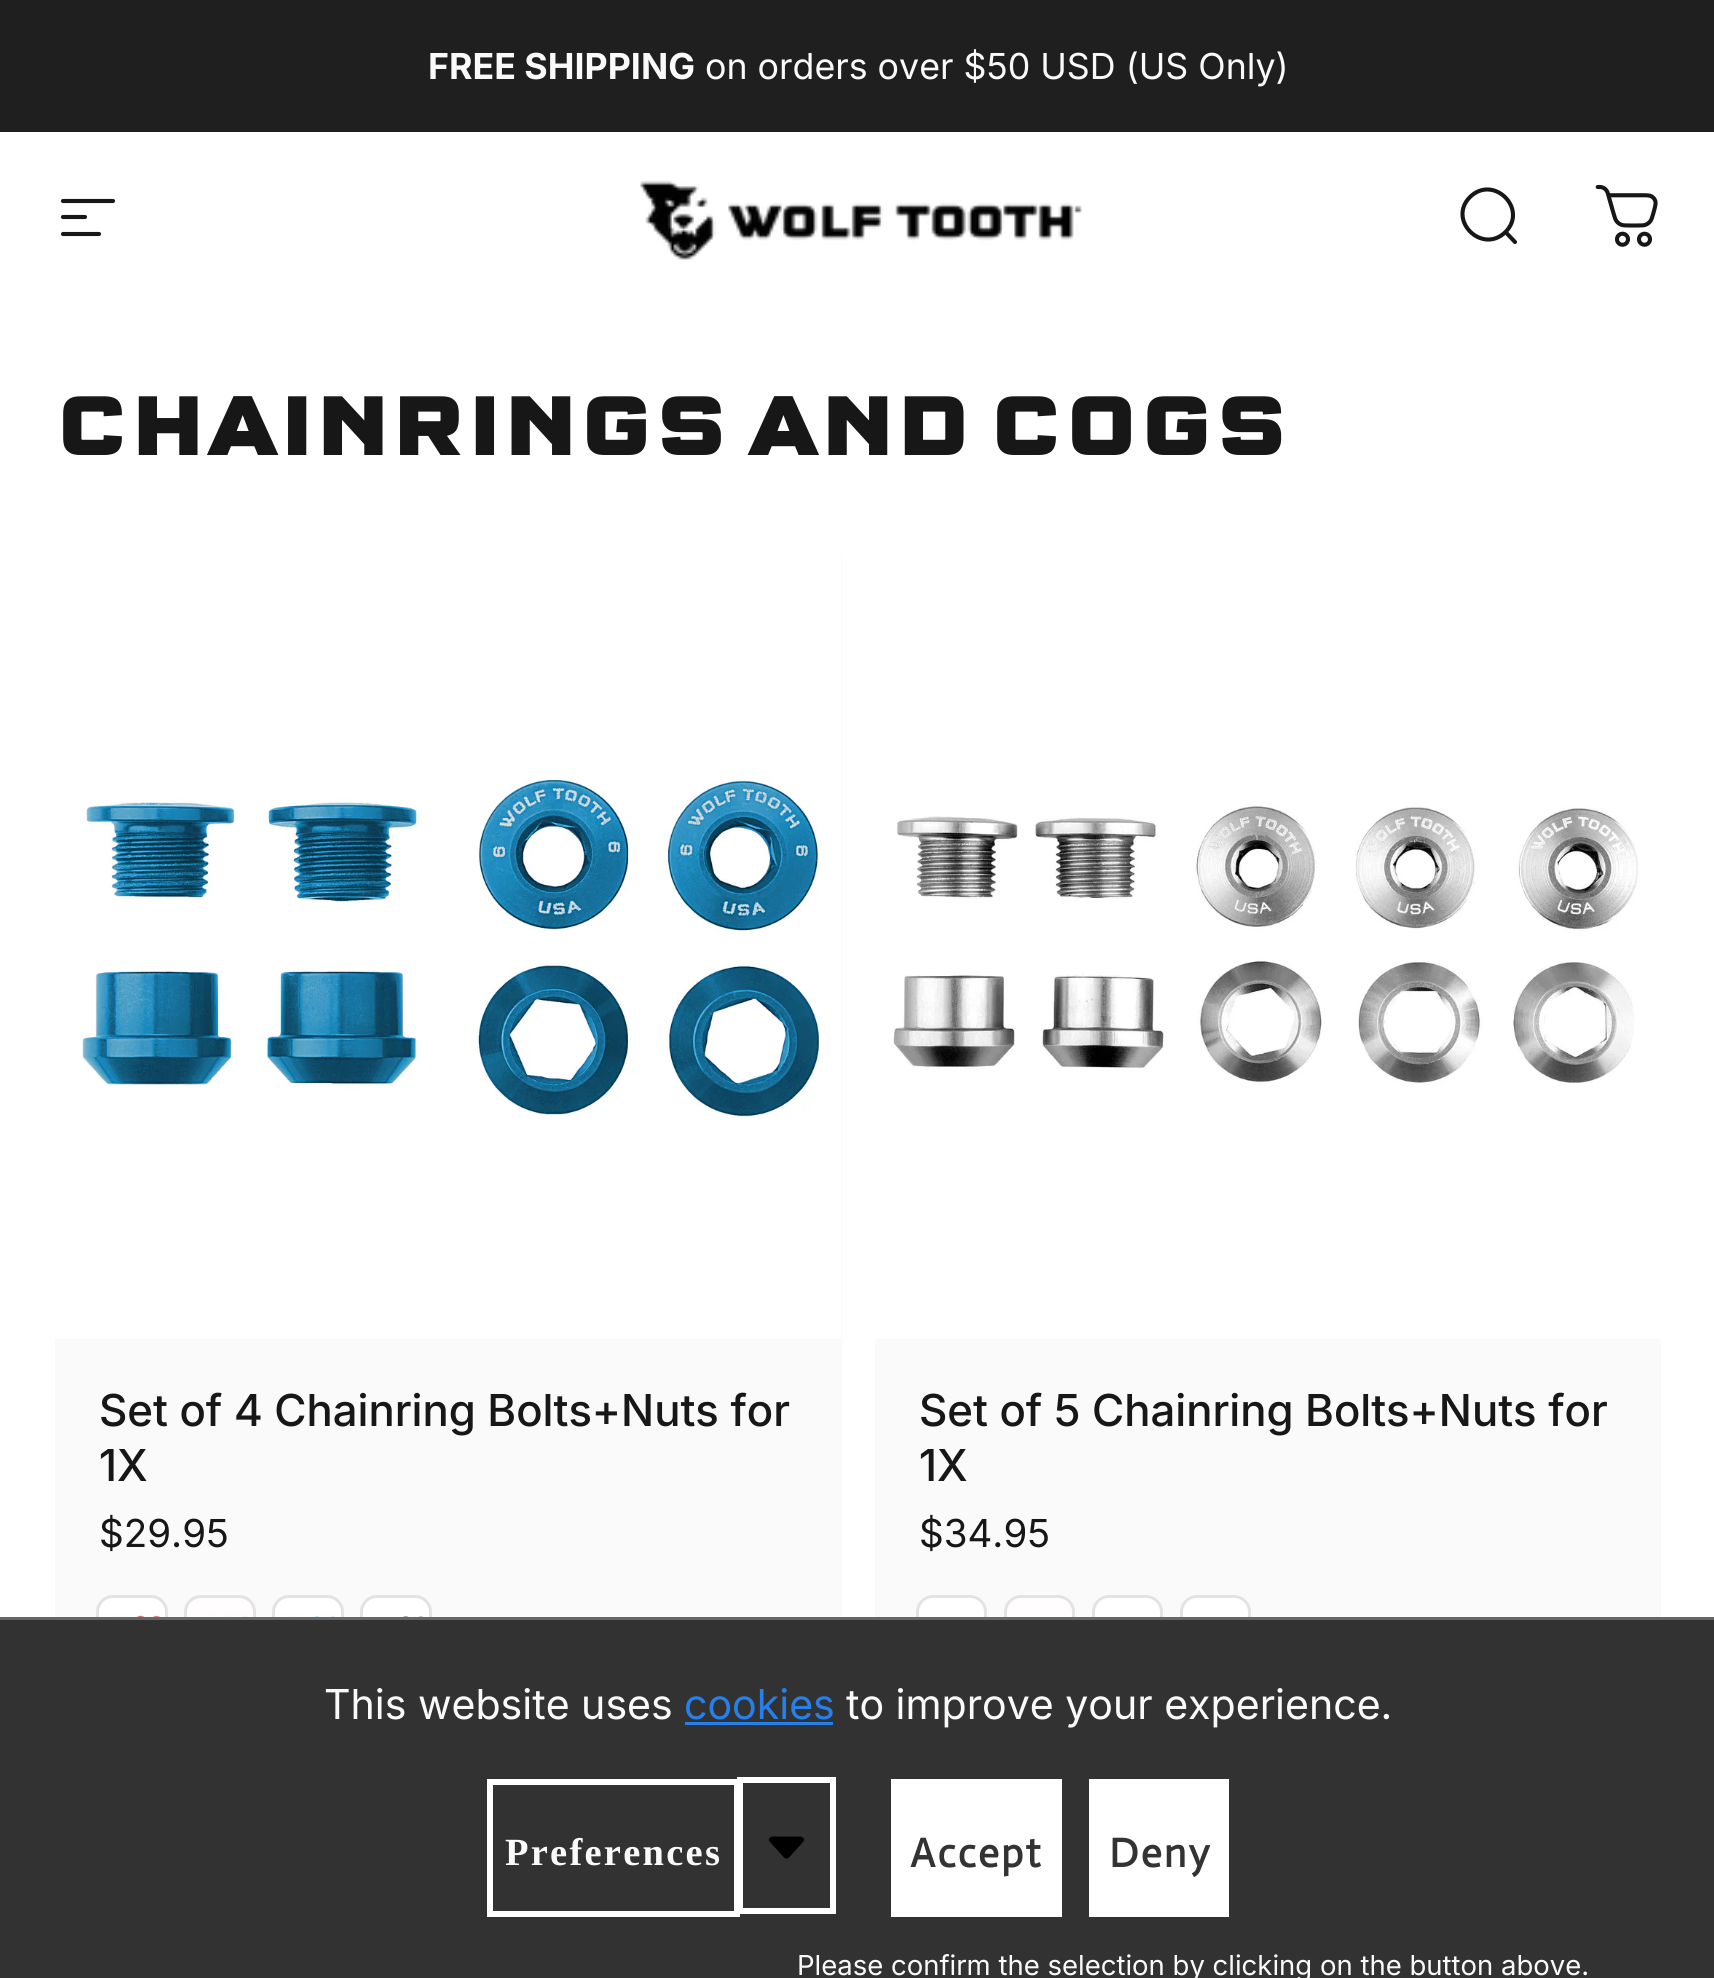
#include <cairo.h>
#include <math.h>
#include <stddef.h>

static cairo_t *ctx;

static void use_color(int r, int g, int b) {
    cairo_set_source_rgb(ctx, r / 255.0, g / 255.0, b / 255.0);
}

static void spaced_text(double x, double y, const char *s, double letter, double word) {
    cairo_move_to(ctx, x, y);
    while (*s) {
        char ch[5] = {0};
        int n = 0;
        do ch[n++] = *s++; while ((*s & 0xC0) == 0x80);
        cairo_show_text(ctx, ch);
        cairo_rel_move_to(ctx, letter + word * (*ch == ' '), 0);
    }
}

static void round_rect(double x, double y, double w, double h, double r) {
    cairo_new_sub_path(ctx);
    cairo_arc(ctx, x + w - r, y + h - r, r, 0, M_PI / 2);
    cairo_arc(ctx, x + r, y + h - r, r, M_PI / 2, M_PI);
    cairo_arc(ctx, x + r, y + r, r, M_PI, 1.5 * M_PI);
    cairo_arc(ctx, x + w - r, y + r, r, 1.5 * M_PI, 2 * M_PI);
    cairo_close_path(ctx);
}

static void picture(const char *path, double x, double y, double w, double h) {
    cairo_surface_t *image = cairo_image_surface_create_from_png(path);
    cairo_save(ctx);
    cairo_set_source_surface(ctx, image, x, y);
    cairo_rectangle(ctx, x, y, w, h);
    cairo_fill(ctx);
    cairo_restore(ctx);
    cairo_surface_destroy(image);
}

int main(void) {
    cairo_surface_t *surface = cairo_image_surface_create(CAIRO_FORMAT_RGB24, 1714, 1978);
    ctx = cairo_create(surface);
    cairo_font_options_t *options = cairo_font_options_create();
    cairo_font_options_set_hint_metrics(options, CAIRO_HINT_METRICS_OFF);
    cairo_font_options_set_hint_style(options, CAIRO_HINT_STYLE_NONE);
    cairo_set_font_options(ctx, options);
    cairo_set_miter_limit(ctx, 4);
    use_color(255, 255, 255);
    cairo_paint(ctx);
    use_color(31, 31, 31);
    cairo_rectangle(ctx, 0, 0, 1714, 132);
    cairo_fill(ctx);
    cairo_select_font_face(ctx, "Inter", CAIRO_FONT_SLANT_NORMAL, CAIRO_FONT_WEIGHT_BOLD);
    cairo_set_font_size(ctx, 35.75);
    use_color(250, 250, 250);
    cairo_move_to(ctx, 428, 79);
    cairo_show_text(ctx, "FREE SHIPPING");
    cairo_select_font_face(ctx, "Inter", CAIRO_FONT_SLANT_NORMAL, CAIRO_FONT_WEIGHT_NORMAL);
    cairo_move_to(ctx, 705, 79);
    cairo_show_text(ctx, "on orders over $50 USD (US Only)");
    cairo_new_path(ctx);
    cairo_move_to(ctx, 63, 201);
    cairo_line_to(ctx, 113, 201);
    cairo_move_to(ctx, 63, 217);
    cairo_line_to(ctx, 85, 217);
    cairo_move_to(ctx, 63, 234);
    cairo_line_to(ctx, 99, 234);
    use_color(23, 23, 23);
    cairo_set_line_width(ctx, 4.1);
    cairo_set_line_cap(ctx, CAIRO_LINE_CAP_ROUND);
    cairo_stroke(ctx);
    picture("img1.png", 640, 180, 442, 80);
    cairo_new_path(ctx);
    cairo_move_to(ctx, 1515, 242);
    cairo_line_to(ctx, 1505.5, 232);
    cairo_move_to(ctx, 1505.5, 232);
    cairo_curve_to(ctx, 1528.5, 209, 1493.5, 174, 1470, 197);
    cairo_curve_to(ctx, 1447, 220, 1482, 255, 1505.5, 232);
    cairo_close_path(ctx);
    cairo_stroke(ctx);
    picture("img2.png", 1595, 184, 63, 63);
    cairo_select_font_face(ctx, "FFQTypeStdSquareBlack", CAIRO_FONT_SLANT_NORMAL, CAIRO_FONT_WEIGHT_NORMAL);
    cairo_set_font_size(ctx, 88);
    cairo_move_to(ctx, 55, 455);
    cairo_show_text(ctx, "Chainrings");
    cairo_move_to(ctx, 747, 455);
    cairo_show_text(ctx, "and");
    cairo_move_to(ctx, 989, 455);
    cairo_show_text(ctx, "cogs");
    use_color(250, 250, 250);
    cairo_rectangle(ctx, 55, 553, 787, 1064);
    cairo_fill(ctx);
    picture("img3.png", 55, 553, 786, 786);
    cairo_select_font_face(ctx, "Inter Medium", CAIRO_FONT_SLANT_NORMAL, CAIRO_FONT_WEIGHT_NORMAL);
    cairo_set_font_size(ctx, 44);
    use_color(23, 23, 23);
    cairo_move_to(ctx, 99, 1426);
    cairo_show_text(ctx, "Set of 4 Chainring Bolts+Nuts for");
    cairo_move_to(ctx, 99, 1481);
    cairo_show_text(ctx, "1X");
    cairo_select_font_face(ctx, "Inter", CAIRO_FONT_SLANT_NORMAL, CAIRO_FONT_WEIGHT_NORMAL);
    cairo_set_font_size(ctx, 38.5);
    cairo_move_to(ctx, 99, 1547);
    cairo_show_text(ctx, "$29.95");
    picture("img4.png", 99, 1598, 66, 19);
    round_rect(97.5, 1596.5, 69, 69, 15.5);
    cairo_set_source_rgba(ctx, 0.09, 0.09, 0.09, 0.1);
    cairo_set_line_width(ctx, 3);
    cairo_set_line_cap(ctx, CAIRO_LINE_CAP_BUTT);
    cairo_stroke(ctx);
    picture("img5.png", 187, 1598, 66, 19);
    round_rect(185.5, 1596.5, 69, 69, 15.5);
    cairo_stroke(ctx);
    picture("img6.png", 275, 1598, 66, 19);
    round_rect(273.5, 1596.5, 69, 69, 15.5);
    cairo_stroke(ctx);
    picture("img7.png", 363, 1598, 66, 19);
    round_rect(361.5, 1596.5, 69, 69, 15.5);
    cairo_stroke(ctx);
    use_color(250, 250, 250);
    cairo_rectangle(ctx, 875, 1339, 786, 278);
    cairo_fill(ctx);
    picture("img8.png", 875, 553, 786, 786);
    cairo_select_font_face(ctx, "Inter Medium", CAIRO_FONT_SLANT_NORMAL, CAIRO_FONT_WEIGHT_NORMAL);
    cairo_set_font_size(ctx, 44);
    use_color(23, 23, 23);
    cairo_move_to(ctx, 919, 1426);
    cairo_show_text(ctx, "Set of 5 Chainring Bolts+Nuts for");
    cairo_move_to(ctx, 919, 1481);
    cairo_show_text(ctx, "1X");
    cairo_select_font_face(ctx, "Inter", CAIRO_FONT_SLANT_NORMAL, CAIRO_FONT_WEIGHT_NORMAL);
    cairo_set_font_size(ctx, 38.5);
    cairo_move_to(ctx, 919, 1547);
    cairo_show_text(ctx, "$34.95");
    use_color(245, 245, 245);
    round_rect(919, 1598, 66, 66, 14);
    cairo_fill(ctx);
    picture("img9.png", 919, 1598, 66, 19);
    round_rect(917.5, 1596.5, 68, 69, 15.5);
    cairo_set_source_rgba(ctx, 0.09, 0.09, 0.09, 0.1);
    cairo_stroke(ctx);
    use_color(245, 245, 245);
    round_rect(1007, 1598, 66, 66, 14);
    cairo_fill(ctx);
    picture("img10.png", 1007, 1598, 66, 19);
    round_rect(1005.5, 1596.5, 68, 69, 15.5);
    cairo_set_source_rgba(ctx, 0.09, 0.09, 0.09, 0.1);
    cairo_stroke(ctx);
    use_color(245, 245, 245);
    round_rect(1095, 1598, 66, 66, 14);
    cairo_fill(ctx);
    picture("img11.png", 1095, 1598, 66, 19);
    round_rect(1093.5, 1596.5, 68, 69, 15.5);
    cairo_set_source_rgba(ctx, 0.09, 0.09, 0.09, 0.1);
    cairo_stroke(ctx);
    use_color(245, 245, 245);
    round_rect(1183, 1598, 66, 66, 14);
    cairo_fill(ctx);
    picture("img12.png", 1183, 1598, 66, 19);
    round_rect(1181.5, 1596.5, 68, 69, 15.5);
    cairo_set_source_rgba(ctx, 0.09, 0.09, 0.09, 0.1);
    cairo_stroke(ctx);
    use_color(51, 50, 50);
    cairo_rectangle(ctx, 0, 1620, 1714, 358);
    cairo_fill(ctx);
    use_color(102, 102, 102);
    cairo_rectangle(ctx, 0, 1617, 1714, 3);
    cairo_fill(ctx);
    cairo_select_font_face(ctx, "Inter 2", CAIRO_FONT_SLANT_NORMAL, CAIRO_FONT_WEIGHT_NORMAL);
    cairo_set_font_size(ctx, 41.25);
    use_color(250, 250, 250);
    cairo_move_to(ctx, 324, 1719);
    cairo_show_text(ctx, "This website uses");
    use_color(38, 128, 235);
    cairo_move_to(ctx, 684, 1719);
    cairo_show_text(ctx, "cookies");
    cairo_rectangle(ctx, 685, 1722, 148, 3);
    cairo_fill(ctx);
    use_color(250, 250, 250);
    cairo_move_to(ctx, 846, 1719);
    cairo_show_text(ctx, "to improve your experience.");
    cairo_rectangle(ctx, 490, 1782, 247, 132);
    use_color(255, 255, 255);
    cairo_set_line_width(ctx, 6);
    cairo_stroke(ctx);
    cairo_select_font_face(ctx, "Liberation Serif", CAIRO_FONT_SLANT_NORMAL, CAIRO_FONT_WEIGHT_BOLD);
    cairo_set_font_size(ctx, 38.5);
    use_color(250, 250, 250);
    spaced_text(505, 1865, "Preferences", 2.25, 0);
    cairo_rectangle(ctx, 740, 1780, 93, 131);
    use_color(255, 255, 255);
    cairo_stroke(ctx);
    use_color(0, 0, 0);
    cairo_new_path(ctx);
    cairo_move_to(ctx, 800, 1836.5);
    cairo_line_to(ctx, 773, 1836.5);
    cairo_curve_to(ctx, 769.5, 1836.5, 767.5, 1840, 770, 1842);
    cairo_line_to(ctx, 783.5, 1857);
    cairo_curve_to(ctx, 785, 1859, 788, 1859, 789.5, 1857);
    cairo_line_to(ctx, 803, 1842);
    cairo_curve_to(ctx, 805.5, 1840, 803.5, 1836.5, 800, 1836.5);
    cairo_close_path(ctx);
    cairo_fill(ctx);
    use_color(255, 255, 255);
    cairo_rectangle(ctx, 891, 1779, 171, 138);
    cairo_fill(ctx);
    cairo_select_font_face(ctx, "Actor", CAIRO_FONT_SLANT_NORMAL, CAIRO_FONT_WEIGHT_BOLD);
    cairo_set_font_size(ctx, 41.25);
    use_color(51, 51, 51);
    spaced_text(910, 1867, "Accept", 2.25, 0);
    use_color(255, 255, 255);
    cairo_rectangle(ctx, 1089, 1779, 140, 138);
    cairo_fill(ctx);
    use_color(51, 51, 51);
    spaced_text(1109, 1867, "Deny", 2.25, 0);
    cairo_select_font_face(ctx, "Inter", CAIRO_FONT_SLANT_NORMAL, CAIRO_FONT_WEIGHT_NORMAL);
    cairo_set_font_size(ctx, 27.5);
    use_color(250, 250, 250);
    cairo_move_to(ctx, 797, 1975);
    cairo_show_text(ctx, "Please confirm the selection by clicking on the button above.");
    cairo_surface_write_to_png(surface, "result.png");
    cairo_font_options_destroy(options);
    cairo_destroy(ctx);
    cairo_surface_destroy(surface);
    return 0;
}
